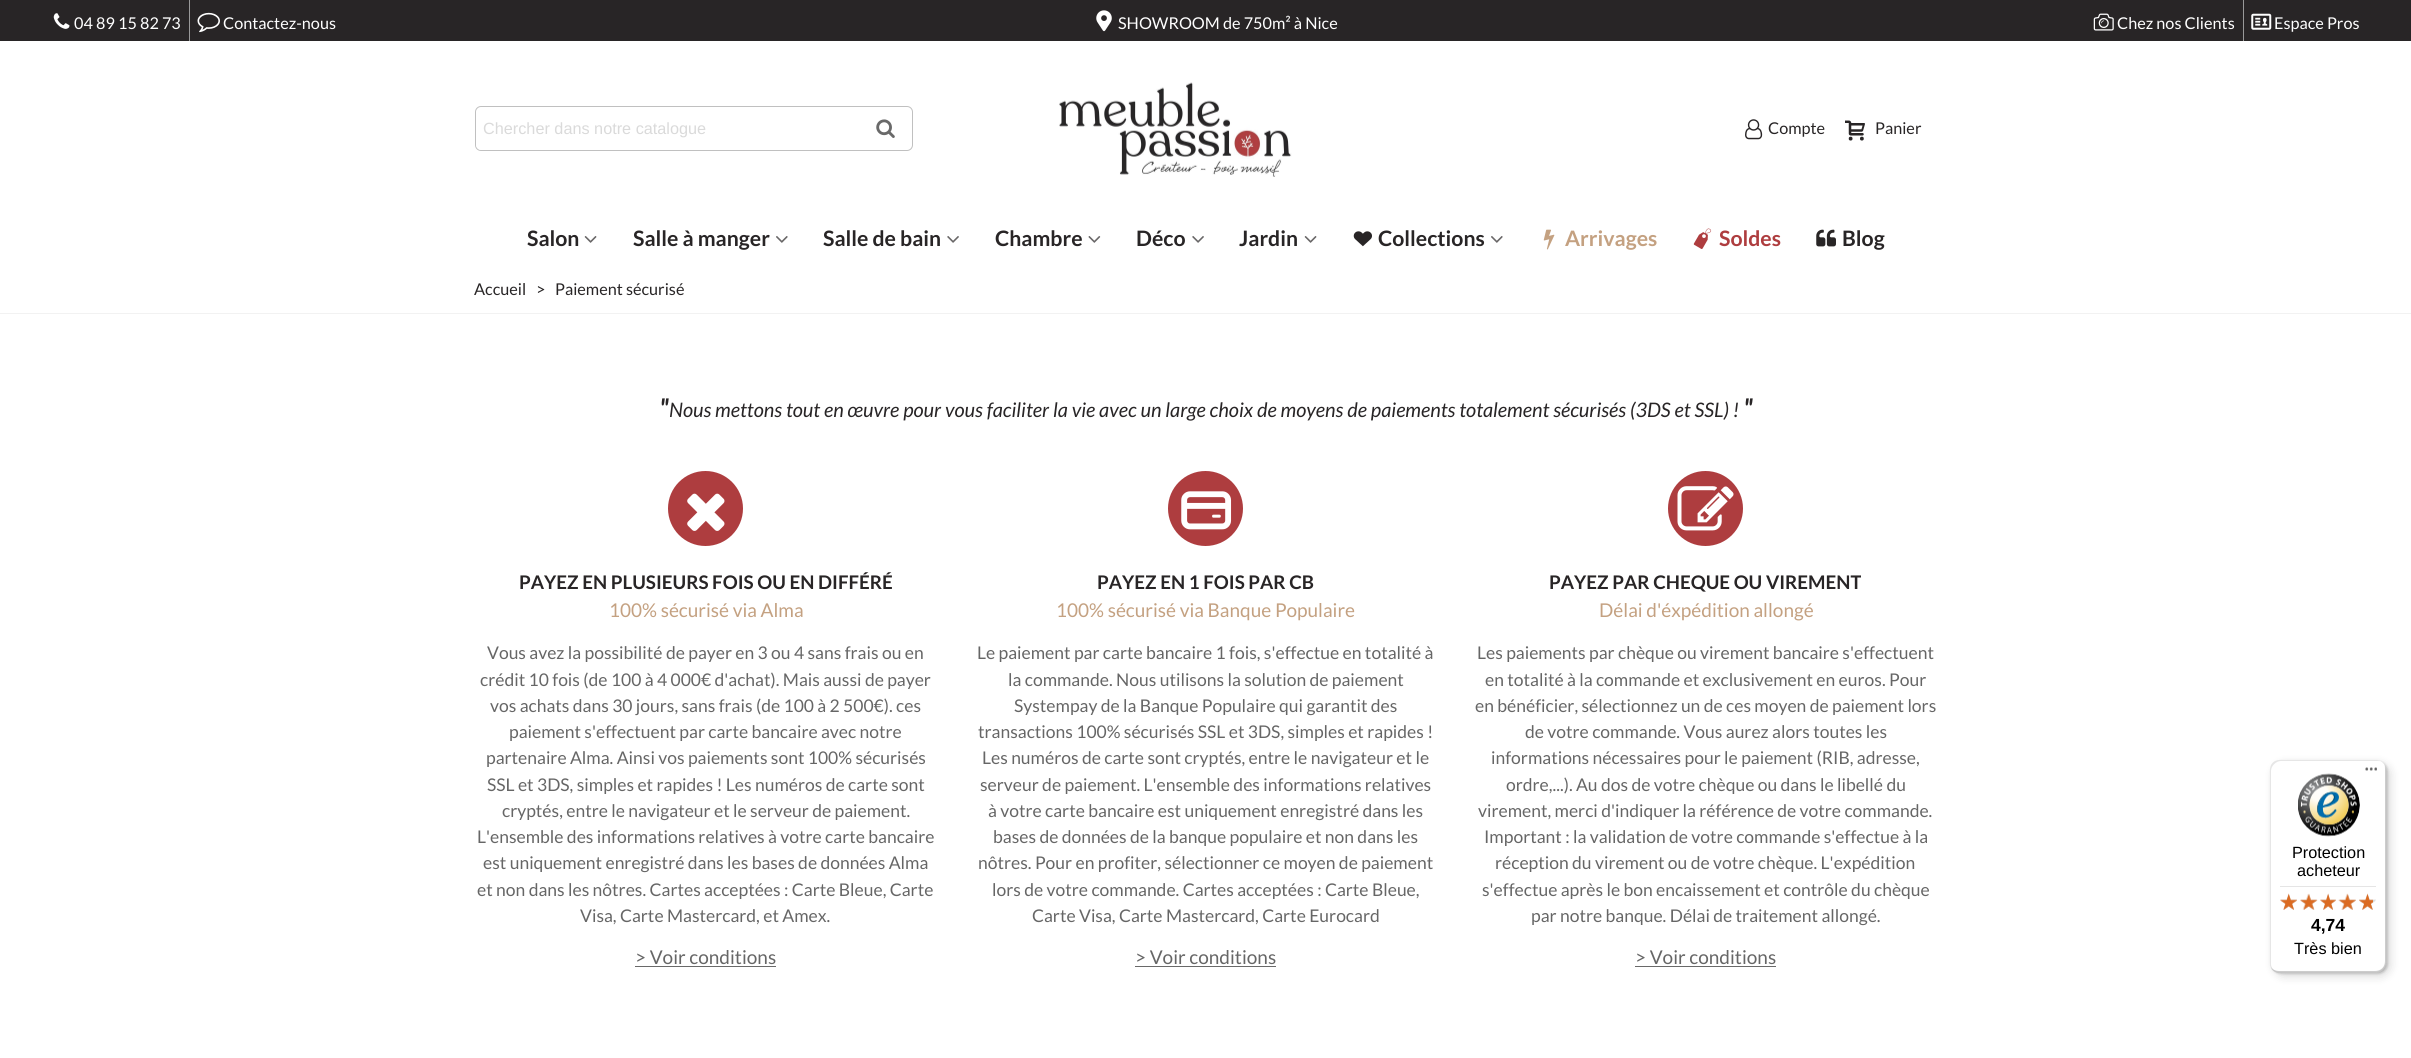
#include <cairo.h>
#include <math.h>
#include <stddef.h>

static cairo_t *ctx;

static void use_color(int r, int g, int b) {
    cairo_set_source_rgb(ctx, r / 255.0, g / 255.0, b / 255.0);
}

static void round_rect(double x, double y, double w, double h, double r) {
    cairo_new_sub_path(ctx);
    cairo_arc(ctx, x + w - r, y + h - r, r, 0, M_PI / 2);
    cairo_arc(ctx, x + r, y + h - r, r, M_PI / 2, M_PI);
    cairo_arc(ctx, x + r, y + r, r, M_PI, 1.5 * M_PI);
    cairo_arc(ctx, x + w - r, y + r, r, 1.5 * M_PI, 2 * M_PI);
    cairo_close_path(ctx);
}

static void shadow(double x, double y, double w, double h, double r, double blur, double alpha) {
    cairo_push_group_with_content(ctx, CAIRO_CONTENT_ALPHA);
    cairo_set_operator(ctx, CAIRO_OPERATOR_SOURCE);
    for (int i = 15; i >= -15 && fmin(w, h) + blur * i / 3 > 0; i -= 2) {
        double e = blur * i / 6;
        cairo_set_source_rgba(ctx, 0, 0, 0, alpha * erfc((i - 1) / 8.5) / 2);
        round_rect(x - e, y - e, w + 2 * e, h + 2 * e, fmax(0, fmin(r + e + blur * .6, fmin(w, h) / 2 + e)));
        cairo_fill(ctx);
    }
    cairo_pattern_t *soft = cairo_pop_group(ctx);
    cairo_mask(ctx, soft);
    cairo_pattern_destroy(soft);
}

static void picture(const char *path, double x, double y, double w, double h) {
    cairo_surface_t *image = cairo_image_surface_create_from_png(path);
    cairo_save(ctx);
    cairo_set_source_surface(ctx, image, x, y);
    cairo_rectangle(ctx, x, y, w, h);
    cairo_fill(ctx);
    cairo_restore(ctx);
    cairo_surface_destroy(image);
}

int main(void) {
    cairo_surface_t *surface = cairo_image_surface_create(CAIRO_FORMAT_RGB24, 2411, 1058);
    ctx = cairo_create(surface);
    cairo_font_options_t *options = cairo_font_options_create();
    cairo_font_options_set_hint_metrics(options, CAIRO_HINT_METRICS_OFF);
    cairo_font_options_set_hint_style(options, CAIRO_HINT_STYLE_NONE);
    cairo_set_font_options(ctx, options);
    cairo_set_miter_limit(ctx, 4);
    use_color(255, 255, 255);
    cairo_paint(ctx);
    use_color(40, 37, 38);
    cairo_rectangle(ctx, 0, 0, 2411, 41);
    cairo_fill(ctx);
    picture("img1.png", 53, 13, 17, 16);
    cairo_select_font_face(ctx, "Lato", CAIRO_FONT_SLANT_NORMAL, CAIRO_FONT_WEIGHT_NORMAL);
    cairo_set_font_size(ctx, 16.25);
    use_color(255, 255, 255);
    cairo_move_to(ctx, 74, 29);
    cairo_show_text(ctx, "04 89 15 82 73");
    use_color(153, 153, 153);
    cairo_rectangle(ctx, 189, 0, 1, 41);
    cairo_fill(ctx);
    picture("img2.png", 197, 12, 23, 21);
    use_color(255, 255, 255);
    cairo_move_to(ctx, 223, 29);
    cairo_show_text(ctx, "Contactez-nous");
    picture("img3.png", 1096, 10, 16, 22);
    cairo_move_to(ctx, 1118, 29);
    cairo_show_text(ctx, "SHOWROOM de 750m² à Nice");
    picture("img4.png", 2093, 13, 21, 18);
    cairo_move_to(ctx, 2117, 29);
    cairo_show_text(ctx, "Chez nos Clients");
    use_color(153, 153, 153);
    cairo_rectangle(ctx, 2243, 0, 1, 41);
    cairo_fill(ctx);
    picture("img5.png", 2251, 13, 21, 17);
    use_color(255, 255, 255);
    cairo_move_to(ctx, 2274, 29);
    cairo_show_text(ctx, "Espace Pros");
    round_rect(475.5, 106.5, 437, 44, 5.5);
    use_color(192, 192, 192);
    cairo_set_line_width(ctx, 1);
    cairo_stroke(ctx);
    use_color(255, 255, 255);
    cairo_new_path(ctx);
    cairo_move_to(ctx, 482, 108);
    cairo_line_to(ctx, 865, 108);
    cairo_line_to(ctx, 865, 150);
    cairo_line_to(ctx, 482, 150);
    cairo_curve_to(ctx, 478.5, 150, 476, 147.5, 476, 144);
    cairo_line_to(ctx, 476, 114);
    cairo_curve_to(ctx, 476, 110.5, 478.5, 108, 482, 108);
    cairo_close_path(ctx);
    cairo_fill(ctx);
    cairo_select_font_face(ctx, "Liberation Sans", CAIRO_FONT_SLANT_NORMAL, CAIRO_FONT_WEIGHT_NORMAL);
    use_color(218, 218, 218);
    cairo_move_to(ctx, 483, 134);
    cairo_show_text(ctx, "Chercher dans notre catalogue");
    picture("img6.png", 876, 119, 19, 19);
    picture("img7.png", 1059, 82, 233, 95);
    picture("img8.png", 1745, 119, 18, 21);
    cairo_select_font_face(ctx, "Lato", CAIRO_FONT_SLANT_NORMAL, CAIRO_FONT_WEIGHT_NORMAL);
    use_color(40, 37, 38);
    cairo_move_to(ctx, 1768, 134);
    cairo_show_text(ctx, "Compte");
    picture("img9.png", 1845, 120, 20, 21);
    cairo_move_to(ctx, 1875, 134);
    cairo_show_text(ctx, "Panier");
    cairo_select_font_face(ctx, "Lato", CAIRO_FONT_SLANT_NORMAL, CAIRO_FONT_WEIGHT_BOLD);
    cairo_set_font_size(ctx, 21.25);
    cairo_move_to(ctx, 527, 246);
    cairo_show_text(ctx, "Salon");
    picture("img10.png", 584, 236, 13, 7);
    cairo_move_to(ctx, 633, 246);
    cairo_show_text(ctx, "Salle à manger");
    picture("img11.png", 776, 236, 12, 7);
    cairo_move_to(ctx, 823, 246);
    cairo_show_text(ctx, "Salle de bain");
    picture("img12.png", 947, 236, 12, 7);
    cairo_move_to(ctx, 995, 246);
    cairo_show_text(ctx, "Chambre");
    picture("img13.png", 1088, 236, 13, 7);
    cairo_move_to(ctx, 1136, 246);
    cairo_show_text(ctx, "Déco");
    picture("img12.png", 1192, 236, 12, 7);
    cairo_move_to(ctx, 1239, 246);
    cairo_show_text(ctx, "Jardin");
    picture("img10.png", 1304, 236, 13, 7);
    picture("img14.png", 1353, 231, 19, 16);
    cairo_move_to(ctx, 1378, 246);
    cairo_show_text(ctx, "Collections");
    picture("img11.png", 1491, 236, 12, 7);
    picture("img15.png", 1543, 229, 12, 21);
    use_color(196, 161, 129);
    cairo_move_to(ctx, 1565, 246);
    cairo_show_text(ctx, "Arrivages");
    picture("img16.png", 1693, 228, 19, 21);
    use_color(174, 61, 63);
    cairo_move_to(ctx, 1719, 246);
    cairo_show_text(ctx, "Soldes");
    picture("img17.png", 1816, 229, 20, 18);
    use_color(40, 37, 38);
    cairo_move_to(ctx, 1842, 246);
    cairo_show_text(ctx, "Blog");
    use_color(242, 242, 242);
    cairo_rectangle(ctx, 0, 313, 2411, 1);
    cairo_fill(ctx);
    cairo_select_font_face(ctx, "Lato", CAIRO_FONT_SLANT_NORMAL, CAIRO_FONT_WEIGHT_NORMAL);
    cairo_set_font_size(ctx, 16.25);
    use_color(40, 37, 38);
    cairo_move_to(ctx, 474, 295);
    cairo_show_text(ctx, "Accueil");
    cairo_move_to(ctx, 536, 295);
    cairo_show_text(ctx, ">");
    cairo_move_to(ctx, 555, 295);
    cairo_show_text(ctx, "Paiement sécurisé");
    cairo_select_font_face(ctx, "Lato", CAIRO_FONT_SLANT_ITALIC, CAIRO_FONT_WEIGHT_BOLD);
    cairo_set_font_size(ctx, 25);
    cairo_move_to(ctx, 659, 417);
    cairo_show_text(ctx, "\"");
    cairo_select_font_face(ctx, "Lato", CAIRO_FONT_SLANT_ITALIC, CAIRO_FONT_WEIGHT_NORMAL);
    cairo_set_font_size(ctx, 20);
    cairo_move_to(ctx, 669, 417);
    cairo_show_text(ctx, "Nous mettons tout en œuvre pour vous faciliter la vie avec un large choix de moyens de paiements totalement sécurisés (3DS et SSL) !");
    cairo_select_font_face(ctx, "Lato", CAIRO_FONT_SLANT_ITALIC, CAIRO_FONT_WEIGHT_BOLD);
    cairo_set_font_size(ctx, 25);
    cairo_move_to(ctx, 1743, 417);
    cairo_show_text(ctx, "\"");
    use_color(174, 61, 63);
    cairo_new_path(ctx);
    cairo_arc(ctx, 705.5, 508.5, 37.5, 0, 2 * M_PI);
    cairo_fill(ctx);
    picture("img18.png", 687, 493, 38, 38);
    cairo_select_font_face(ctx, "Lato", CAIRO_FONT_SLANT_NORMAL, CAIRO_FONT_WEIGHT_BOLD);
    cairo_set_font_size(ctx, 18.75);
    use_color(40, 37, 38);
    cairo_move_to(ctx, 519, 589);
    cairo_show_text(ctx, "PAYEZ EN PLUSIEURS FOIS OU EN DIFFÉRÉ");
    cairo_select_font_face(ctx, "Lato", CAIRO_FONT_SLANT_NORMAL, CAIRO_FONT_WEIGHT_NORMAL);
    cairo_set_font_size(ctx, 19);
    use_color(196, 161, 129);
    cairo_move_to(ctx, 609, 617);
    cairo_show_text(ctx, "100% sécurisé via Alma");
    cairo_set_font_size(ctx, 17.5);
    use_color(102, 102, 102);
    cairo_move_to(ctx, 487, 659);
    cairo_show_text(ctx, "Vous avez la possibilité de payer en 3 ou 4 sans frais ou en");
    cairo_move_to(ctx, 480, 686);
    cairo_show_text(ctx, "crédit 10 fois (de 100 à 4 000€ d'achat). Mais aussi de payer");
    cairo_move_to(ctx, 490, 712);
    cairo_show_text(ctx, "vos achats dans 30 jours, sans frais (de 100 à 2 500€). ces");
    cairo_move_to(ctx, 509, 738);
    cairo_show_text(ctx, "paiement s'effectuent par carte bancaire avec notre");
    cairo_move_to(ctx, 486, 764);
    cairo_show_text(ctx, "partenaire Alma. Ainsi vos paiements sont 100% sécurisés");
    cairo_move_to(ctx, 487, 791);
    cairo_show_text(ctx, "SSL et 3DS, simples et rapides ! Les numéros de carte sont");
    cairo_move_to(ctx, 502, 817);
    cairo_show_text(ctx, "cryptés, entre le navigateur et le serveur de paiement.");
    cairo_move_to(ctx, 477, 843);
    cairo_show_text(ctx, "L'ensemble des informations relatives à votre carte bancaire");
    cairo_move_to(ctx, 483, 869);
    cairo_show_text(ctx, "est uniquement enregistré dans les bases de données Alma");
    cairo_move_to(ctx, 477, 896);
    cairo_show_text(ctx, "et non dans les nôtres. Cartes acceptées : Carte Bleue, Carte");
    cairo_move_to(ctx, 580, 922);
    cairo_show_text(ctx, "Visa, Carte Mastercard, et Amex.");
    cairo_set_font_size(ctx, 19);
    cairo_move_to(ctx, 635, 964);
    cairo_show_text(ctx, "> Voir conditions");
    use_color(105, 105, 105);
    cairo_rectangle(ctx, 635, 966, 141, 1);
    cairo_fill(ctx);
    use_color(174, 61, 63);
    cairo_arc(ctx, 1205.5, 508.5, 37.5, 0, 2 * M_PI);
    cairo_fill(ctx);
    picture("img19.png", 1181, 491, 51, 39);
    cairo_select_font_face(ctx, "Lato", CAIRO_FONT_SLANT_NORMAL, CAIRO_FONT_WEIGHT_BOLD);
    cairo_set_font_size(ctx, 18.75);
    use_color(40, 37, 38);
    cairo_move_to(ctx, 1097, 589);
    cairo_show_text(ctx, "PAYEZ EN 1 FOIS PAR CB");
    cairo_select_font_face(ctx, "Lato", CAIRO_FONT_SLANT_NORMAL, CAIRO_FONT_WEIGHT_NORMAL);
    cairo_set_font_size(ctx, 19);
    use_color(196, 161, 129);
    cairo_move_to(ctx, 1056, 617);
    cairo_show_text(ctx, "100% sécurisé via Banque Populaire");
    cairo_set_font_size(ctx, 17.5);
    use_color(102, 102, 102);
    cairo_move_to(ctx, 977, 659);
    cairo_show_text(ctx, "Le paiement par carte bancaire 1 fois, s'effectue en totalité à");
    cairo_move_to(ctx, 1008, 686);
    cairo_show_text(ctx, "la commande. Nous utilisons la solution de paiement");
    cairo_move_to(ctx, 1014, 712);
    cairo_show_text(ctx, "Systempay de la Banque Populaire qui garantit des");
    cairo_move_to(ctx, 978, 738);
    cairo_show_text(ctx, "transactions 100% sécurisés SSL et 3DS, simples et rapides !");
    cairo_move_to(ctx, 982, 764);
    cairo_show_text(ctx, "Les numéros de carte sont cryptés, entre le navigateur et le");
    cairo_move_to(ctx, 980, 791);
    cairo_show_text(ctx, "serveur de paiement. L'ensemble des informations relatives");
    cairo_move_to(ctx, 988, 817);
    cairo_show_text(ctx, "à votre carte bancaire est uniquement enregistré dans les");
    cairo_move_to(ctx, 993, 843);
    cairo_show_text(ctx, "bases de données de la banque populaire et non dans les");
    cairo_move_to(ctx, 978, 869);
    cairo_show_text(ctx, "nôtres. Pour en profiter, sélectionner ce moyen de paiement");
    cairo_move_to(ctx, 992, 896);
    cairo_show_text(ctx, "lors de votre commande. Cartes acceptées : Carte Bleue,");
    cairo_move_to(ctx, 1032, 922);
    cairo_show_text(ctx, "Carte Visa, Carte Mastercard, Carte Eurocard");
    cairo_set_font_size(ctx, 19);
    cairo_move_to(ctx, 1135, 964);
    cairo_show_text(ctx, "> Voir conditions");
    use_color(105, 105, 105);
    cairo_rectangle(ctx, 1135, 966, 141, 1);
    cairo_fill(ctx);
    use_color(174, 61, 63);
    cairo_arc(ctx, 1705.5, 508.5, 37.5, 0, 2 * M_PI);
    cairo_fill(ctx);
    picture("img20.png", 1677, 486, 57, 45);
    cairo_select_font_face(ctx, "Lato", CAIRO_FONT_SLANT_NORMAL, CAIRO_FONT_WEIGHT_BOLD);
    cairo_set_font_size(ctx, 18.75);
    use_color(40, 37, 38);
    cairo_move_to(ctx, 1549, 589);
    cairo_show_text(ctx, "PAYEZ PAR CHEQUE OU VIREMENT");
    cairo_select_font_face(ctx, "Lato", CAIRO_FONT_SLANT_NORMAL, CAIRO_FONT_WEIGHT_NORMAL);
    cairo_set_font_size(ctx, 19);
    use_color(196, 161, 129);
    cairo_move_to(ctx, 1599, 617);
    cairo_show_text(ctx, "Délai d'éxpédition allongé");
    cairo_set_font_size(ctx, 17.5);
    use_color(102, 102, 102);
    cairo_move_to(ctx, 1477, 659);
    cairo_show_text(ctx, "Les paiements par chèque ou virement bancaire s'effectuent");
    cairo_move_to(ctx, 1485, 686);
    cairo_show_text(ctx, "en totalité à la commande et exclusivement en euros. Pour");
    cairo_move_to(ctx, 1475, 712);
    cairo_show_text(ctx, "en bénéficier, sélectionnez un de ces moyen de paiement lors");
    cairo_move_to(ctx, 1525, 738);
    cairo_show_text(ctx, "de votre commande. Vous aurez alors toutes les");
    cairo_move_to(ctx, 1491, 764);
    cairo_show_text(ctx, "informations nécessaires pour le paiement (RIB, adresse,");
    cairo_move_to(ctx, 1506, 791);
    cairo_show_text(ctx, "ordre,...). Au dos de votre chèque ou dans le libellé du");
    cairo_move_to(ctx, 1478, 817);
    cairo_show_text(ctx, "virement, merci d'indiquer la référence de votre commande.");
    cairo_move_to(ctx, 1484, 843);
    cairo_show_text(ctx, "Important : la validation de votre commande s'effectue à la");
    cairo_move_to(ctx, 1495, 869);
    cairo_show_text(ctx, "réception du virement ou de votre chèque. L'expédition");
    cairo_move_to(ctx, 1482, 896);
    cairo_show_text(ctx, "s'effectue après le bon encaissement et contrôle du chèque");
    cairo_move_to(ctx, 1531, 922);
    cairo_show_text(ctx, "par notre banque. Délai de traitement allongé.");
    cairo_set_font_size(ctx, 19);
    cairo_move_to(ctx, 1635, 964);
    cairo_show_text(ctx, "> Voir conditions");
    use_color(105, 105, 105);
    cairo_rectangle(ctx, 1635, 966, 141, 1);
    cairo_fill(ctx);
    use_color(0, 0, 0);
    shadow(2274, 764, 116, 212, 10, 5, 0.15);
    shadow(2271, 761, 117, 213, 10, 1, 0.15);
    use_color(255, 255, 255);
    round_rect(2270, 760, 116, 213, 10);
    cairo_fill(ctx);
    cairo_set_source_rgba(ctx, 0, 0, 0, 0.1);
    cairo_new_path(ctx);
    cairo_move_to(ctx, 2281, 761);
    cairo_line_to(ctx, 2378, 761);
    cairo_curve_to(ctx, 2379, 761, 2381, 761, 2382, 762);
    cairo_curve_to(ctx, 2380, 761, 2378, 760, 2376, 760);
    cairo_line_to(ctx, 2280, 760);
    cairo_curve_to(ctx, 2274, 760, 2270, 764, 2270, 770);
    cairo_line_to(ctx, 2270, 963);
    cairo_curve_to(ctx, 2270, 967, 2272, 970, 2275, 972);
    cairo_curve_to(ctx, 2273, 970, 2271, 967, 2271, 964);
    cairo_line_to(ctx, 2271, 771);
    cairo_curve_to(ctx, 2271, 766, 2276, 761, 2281, 761);
    cairo_close_path(ctx);
    cairo_fill(ctx);
    cairo_set_source_rgba(ctx, 0, 0, 0, 0.2);
    cairo_new_path(ctx);
    cairo_move_to(ctx, 2271, 967);
    cairo_curve_to(ctx, 2273, 971, 2276, 973, 2280, 973);
    cairo_line_to(ctx, 2376, 973);
    cairo_curve_to(ctx, 2382, 973, 2386, 969, 2386, 963);
    cairo_line_to(ctx, 2386, 770);
    cairo_curve_to(ctx, 2386, 768, 2385, 765, 2384, 764);
    cairo_curve_to(ctx, 2385, 765, 2385, 767, 2385, 769);
    cairo_line_to(ctx, 2385, 961);
    cairo_curve_to(ctx, 2385, 967, 2381, 971, 2375, 971);
    cairo_line_to(ctx, 2279, 971);
    cairo_curve_to(ctx, 2276, 971, 2273, 970, 2271, 967);
    cairo_close_path(ctx);
    cairo_fill(ctx);
    picture("img21.png", 2365, 767, 12, 4);
    cairo_set_source_rgba(ctx, 0.196, 0.196, 0.196, 0.2);
    cairo_new_path(ctx);
    cairo_move_to(ctx, 2271, 968);
    cairo_curve_to(ctx, 2273, 971, 2276, 973, 2280, 973);
    cairo_line_to(ctx, 2376, 973);
    cairo_curve_to(ctx, 2382, 973, 2386, 969, 2386, 963);
    cairo_line_to(ctx, 2386, 962);
    cairo_curve_to(ctx, 2386, 967, 2381, 972, 2376, 972);
    cairo_line_to(ctx, 2279, 972);
    cairo_curve_to(ctx, 2276, 972, 2273, 970, 2271, 968);
    cairo_close_path(ctx);
    cairo_fill(ctx);
    cairo_set_source_rgba(ctx, 1, 1, 1, 0.3);
    cairo_new_path(ctx);
    cairo_move_to(ctx, 2271, 968);
    cairo_curve_to(ctx, 2273, 971, 2276, 973, 2280, 973);
    cairo_line_to(ctx, 2376, 973);
    cairo_curve_to(ctx, 2382, 973, 2386, 969, 2386, 963);
    cairo_line_to(ctx, 2386, 962);
    cairo_curve_to(ctx, 2386, 967, 2381, 972, 2376, 972);
    cairo_line_to(ctx, 2279, 972);
    cairo_curve_to(ctx, 2276, 972, 2273, 970, 2271, 968);
    cairo_close_path(ctx);
    cairo_fill(ctx);
    picture("img22.png", 2298, 773, 62, 64);
    cairo_select_font_face(ctx, "Liberation Sans", CAIRO_FONT_SLANT_NORMAL, CAIRO_FONT_WEIGHT_NORMAL);
    cairo_set_font_size(ctx, 16.25);
    use_color(0, 0, 0);
    cairo_move_to(ctx, 2292, 858);
    cairo_show_text(ctx, "Protection");
    cairo_move_to(ctx, 2297, 876);
    cairo_show_text(ctx, "acheteur");
    use_color(229, 229, 229);
    cairo_rectangle(ctx, 2280, 886, 96, 1);
    cairo_fill(ctx);
    picture("img28.png", 2280, 894, 17, 16);
    picture("img23.png", 2280, 893, 17, 17);
    picture("img29.png", 2300, 894, 17, 16);
    picture("img24.png", 2300, 893, 18, 17);
    picture("img30.png", 2320, 894, 16, 16);
    picture("img25.png", 2320, 893, 16, 17);
    picture("img31.png", 2338, 894, 18, 16);
    picture("img26.png", 2338, 893, 18, 17);
    picture("img32.png", 2359, 894, 17, 16);
    picture("img27.png", 2359, 893, 14, 17);
    cairo_select_font_face(ctx, "Liberation Sans", CAIRO_FONT_SLANT_NORMAL, CAIRO_FONT_WEIGHT_BOLD);
    cairo_set_font_size(ctx, 17.5);
    use_color(0, 0, 0);
    cairo_move_to(ctx, 2311, 931);
    cairo_show_text(ctx, "4,74");
    cairo_select_font_face(ctx, "Liberation Sans", CAIRO_FONT_SLANT_NORMAL, CAIRO_FONT_WEIGHT_NORMAL);
    cairo_set_font_size(ctx, 16.25);
    cairo_move_to(ctx, 2294, 954);
    cairo_show_text(ctx, "Très bien");
    cairo_surface_write_to_png(surface, "result.png");
    cairo_font_options_destroy(options);
    cairo_destroy(ctx);
    cairo_surface_destroy(surface);
    return 0;
}
